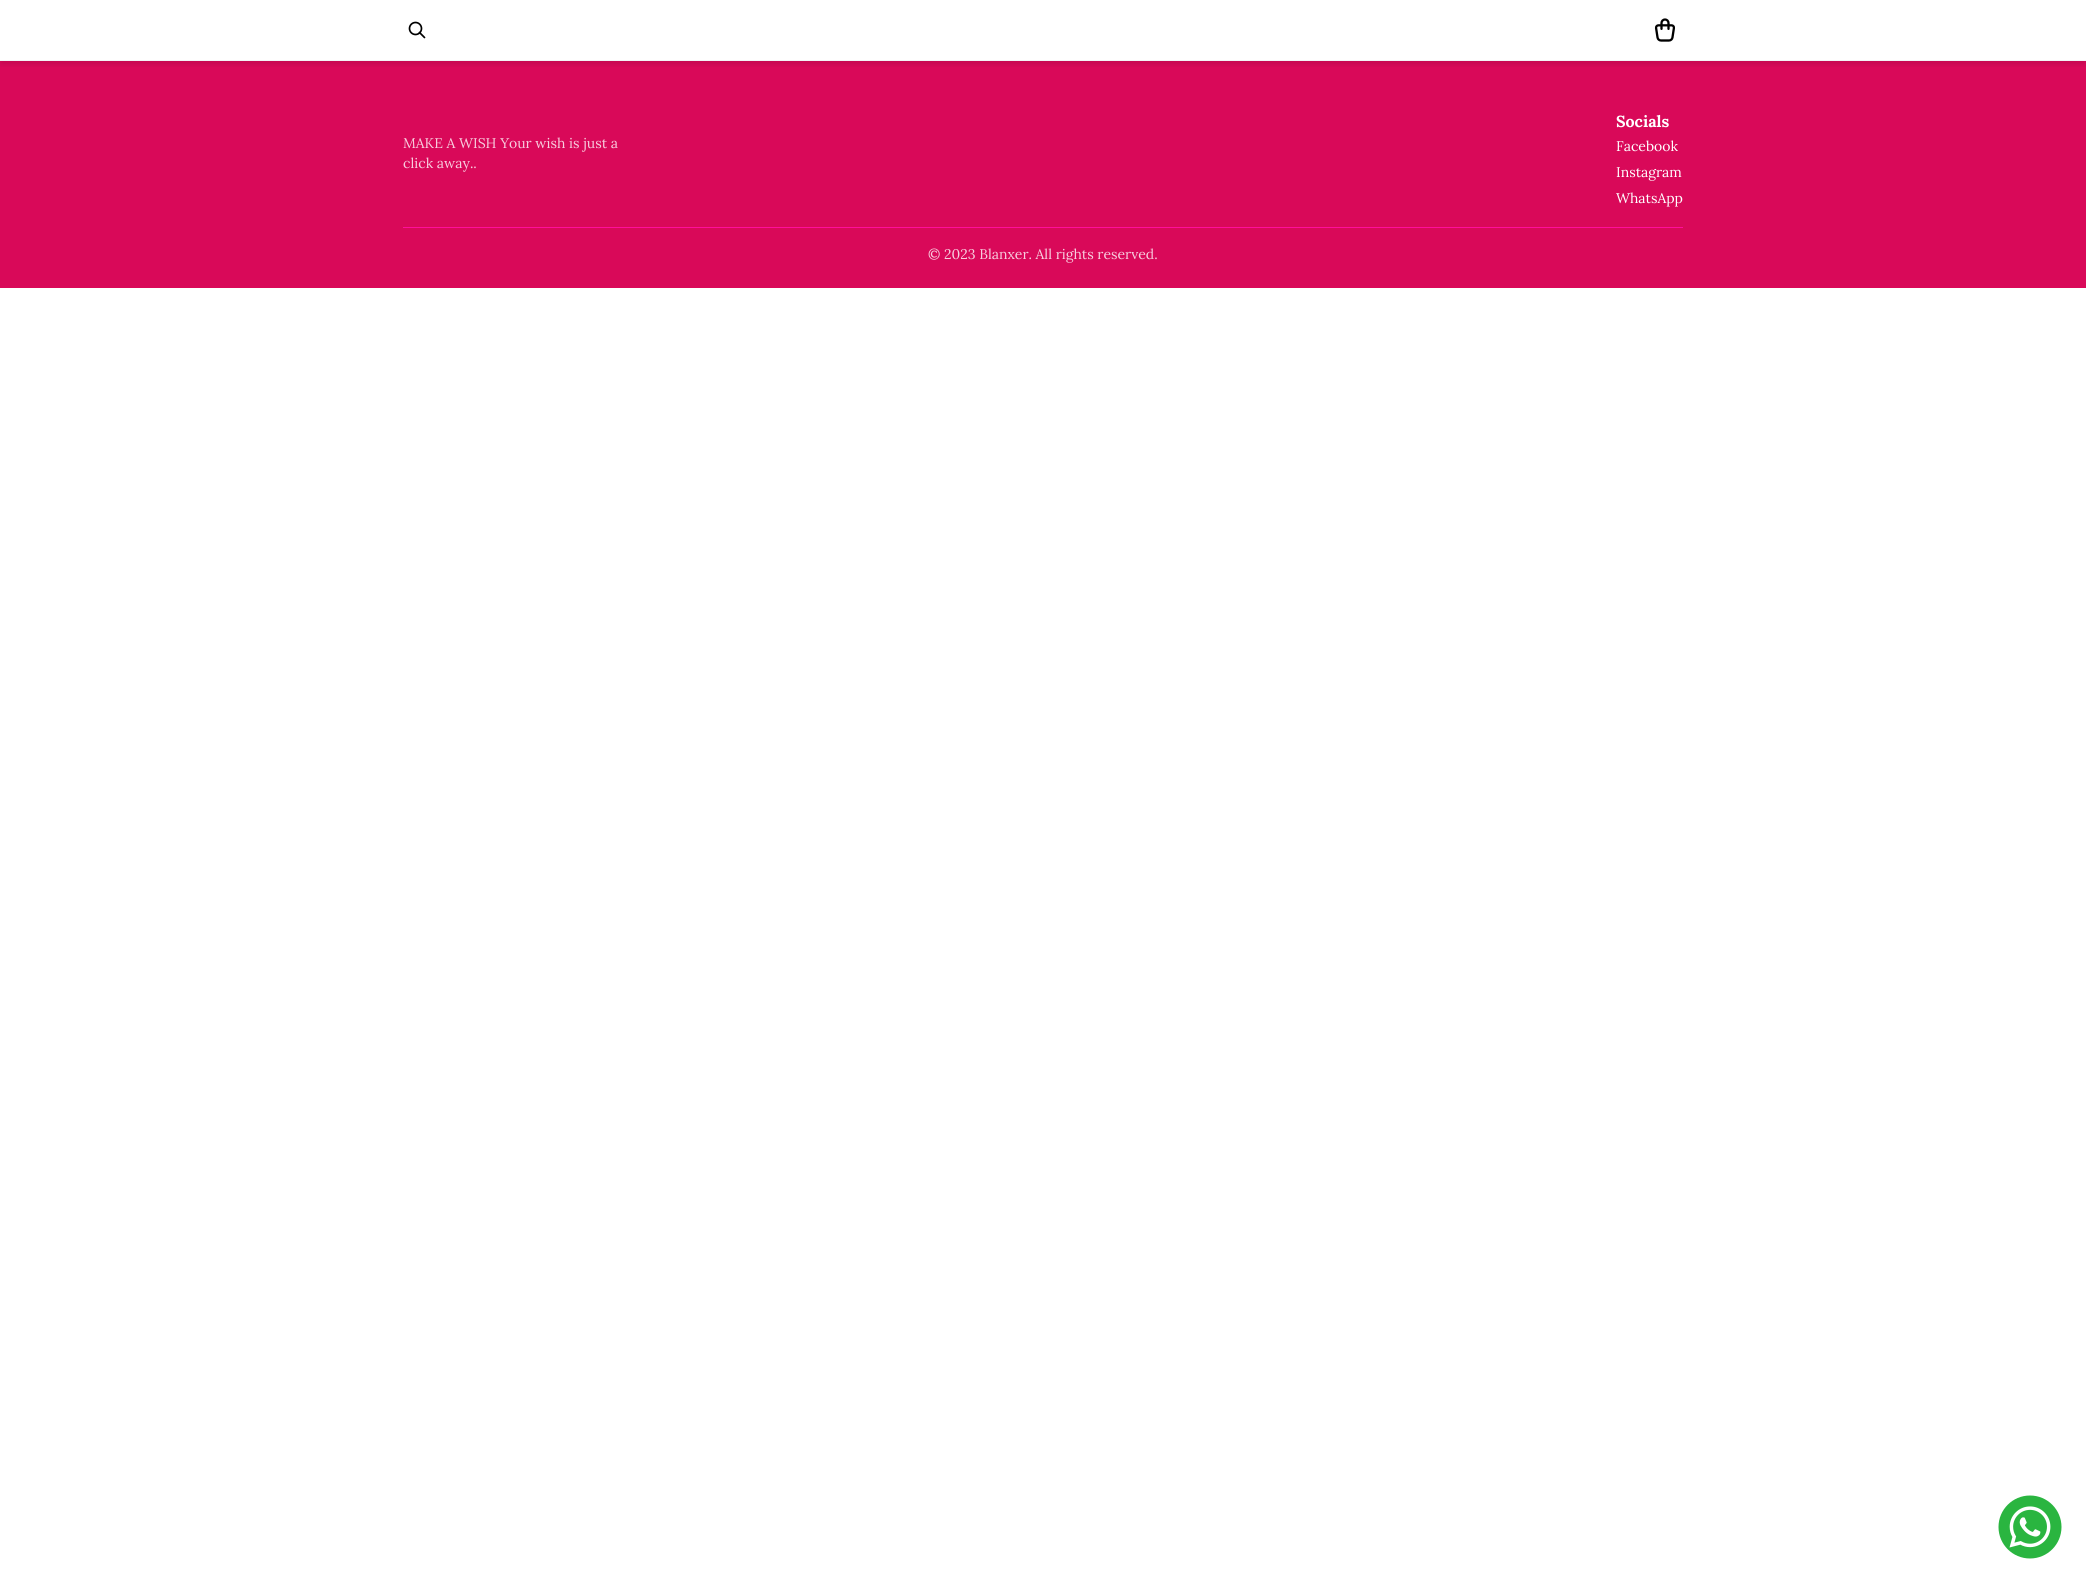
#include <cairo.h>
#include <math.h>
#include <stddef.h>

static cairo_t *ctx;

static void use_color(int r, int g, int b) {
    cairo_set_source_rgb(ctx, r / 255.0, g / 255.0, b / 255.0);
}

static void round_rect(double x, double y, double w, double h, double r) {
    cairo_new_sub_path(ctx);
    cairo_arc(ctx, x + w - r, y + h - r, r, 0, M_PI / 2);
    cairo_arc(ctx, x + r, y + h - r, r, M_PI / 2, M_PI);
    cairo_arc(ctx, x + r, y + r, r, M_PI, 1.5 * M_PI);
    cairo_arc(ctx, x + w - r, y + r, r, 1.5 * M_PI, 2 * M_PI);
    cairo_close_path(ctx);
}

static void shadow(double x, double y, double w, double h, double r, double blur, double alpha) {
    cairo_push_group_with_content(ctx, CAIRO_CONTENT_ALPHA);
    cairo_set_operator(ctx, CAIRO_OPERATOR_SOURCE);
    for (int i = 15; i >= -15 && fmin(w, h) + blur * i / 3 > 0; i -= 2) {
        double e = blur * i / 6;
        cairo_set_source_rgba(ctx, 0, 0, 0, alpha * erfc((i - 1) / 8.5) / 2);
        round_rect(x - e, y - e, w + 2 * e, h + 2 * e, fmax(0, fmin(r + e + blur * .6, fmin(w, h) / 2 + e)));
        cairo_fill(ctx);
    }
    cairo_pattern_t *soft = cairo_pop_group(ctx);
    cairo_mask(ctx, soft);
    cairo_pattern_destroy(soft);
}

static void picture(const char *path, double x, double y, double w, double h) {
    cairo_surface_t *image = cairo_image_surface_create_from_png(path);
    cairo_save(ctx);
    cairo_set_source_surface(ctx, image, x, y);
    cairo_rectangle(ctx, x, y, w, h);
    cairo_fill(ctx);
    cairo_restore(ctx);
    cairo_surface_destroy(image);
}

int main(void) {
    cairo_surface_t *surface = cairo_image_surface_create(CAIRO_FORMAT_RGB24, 2086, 1583);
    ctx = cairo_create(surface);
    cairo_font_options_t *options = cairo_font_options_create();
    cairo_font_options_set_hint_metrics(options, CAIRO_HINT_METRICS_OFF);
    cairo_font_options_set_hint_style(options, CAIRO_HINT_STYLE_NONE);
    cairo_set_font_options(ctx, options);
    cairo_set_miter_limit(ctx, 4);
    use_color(255, 255, 255);
    cairo_paint(ctx);
    use_color(217, 9, 89);
    cairo_rectangle(ctx, 0, 61, 2086, 227);
    cairo_fill(ctx);
    cairo_save(ctx);
    cairo_rectangle(ctx, 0, 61, 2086, 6);
    cairo_clip(ctx);
    use_color(0, 0, 0);
    shadow(1, 5, 2084, 59, 0, 3, 0.1);
    cairo_restore(ctx);
    cairo_arc(ctx, 415.5, 28.5, 6, 0, 2 * M_PI);
    use_color(0, 0, 0);
    cairo_set_line_width(ctx, 1.7);
    cairo_stroke(ctx);
    cairo_new_path(ctx);
    cairo_move_to(ctx, 424.5, 37.5);
    cairo_line_to(ctx, 419.5, 32.5);
    cairo_set_line_cap(ctx, CAIRO_LINE_CAP_ROUND);
    cairo_set_line_join(ctx, CAIRO_LINE_JOIN_ROUND);
    cairo_stroke(ctx);
    picture("img1.png", 1654, 18, 21, 24);
    use_color(243, 244, 246);
    cairo_rectangle(ctx, 0, 60, 2086, 1);
    cairo_fill(ctx);
    cairo_select_font_face(ctx, "Lora", CAIRO_FONT_SLANT_NORMAL, CAIRO_FONT_WEIGHT_NORMAL);
    cairo_set_font_size(ctx, 14);
    use_color(247, 206, 222);
    cairo_move_to(ctx, 403, 148);
    cairo_show_text(ctx, "MAKE A WISH Your wish is just a");
    cairo_move_to(ctx, 403, 168);
    cairo_show_text(ctx, "click away..");
    cairo_select_font_face(ctx, "Lora", CAIRO_FONT_SLANT_NORMAL, CAIRO_FONT_WEIGHT_BOLD);
    cairo_set_font_size(ctx, 16);
    use_color(255, 255, 255);
    cairo_move_to(ctx, 1616, 127);
    cairo_show_text(ctx, "Socials");
    cairo_select_font_face(ctx, "Lora", CAIRO_FONT_SLANT_NORMAL, CAIRO_FONT_WEIGHT_NORMAL);
    cairo_set_font_size(ctx, 14);
    cairo_move_to(ctx, 1616, 151);
    cairo_show_text(ctx, "Facebook");
    cairo_move_to(ctx, 1616, 177);
    cairo_show_text(ctx, "Instagram");
    cairo_move_to(ctx, 1616, 203);
    cairo_show_text(ctx, "WhatsApp");
    use_color(255, 15, 155);
    cairo_rectangle(ctx, 403, 227, 1280, 1);
    cairo_fill(ctx);
    use_color(247, 206, 222);
    cairo_move_to(ctx, 928, 259);
    cairo_show_text(ctx, "© 2023 Blanxer. All rights reserved.");
    picture("img2.png", 1998, 1495, 64, 64);
    cairo_surface_write_to_png(surface, "result.png");
    cairo_font_options_destroy(options);
    cairo_destroy(ctx);
    cairo_surface_destroy(surface);
    return 0;
}
